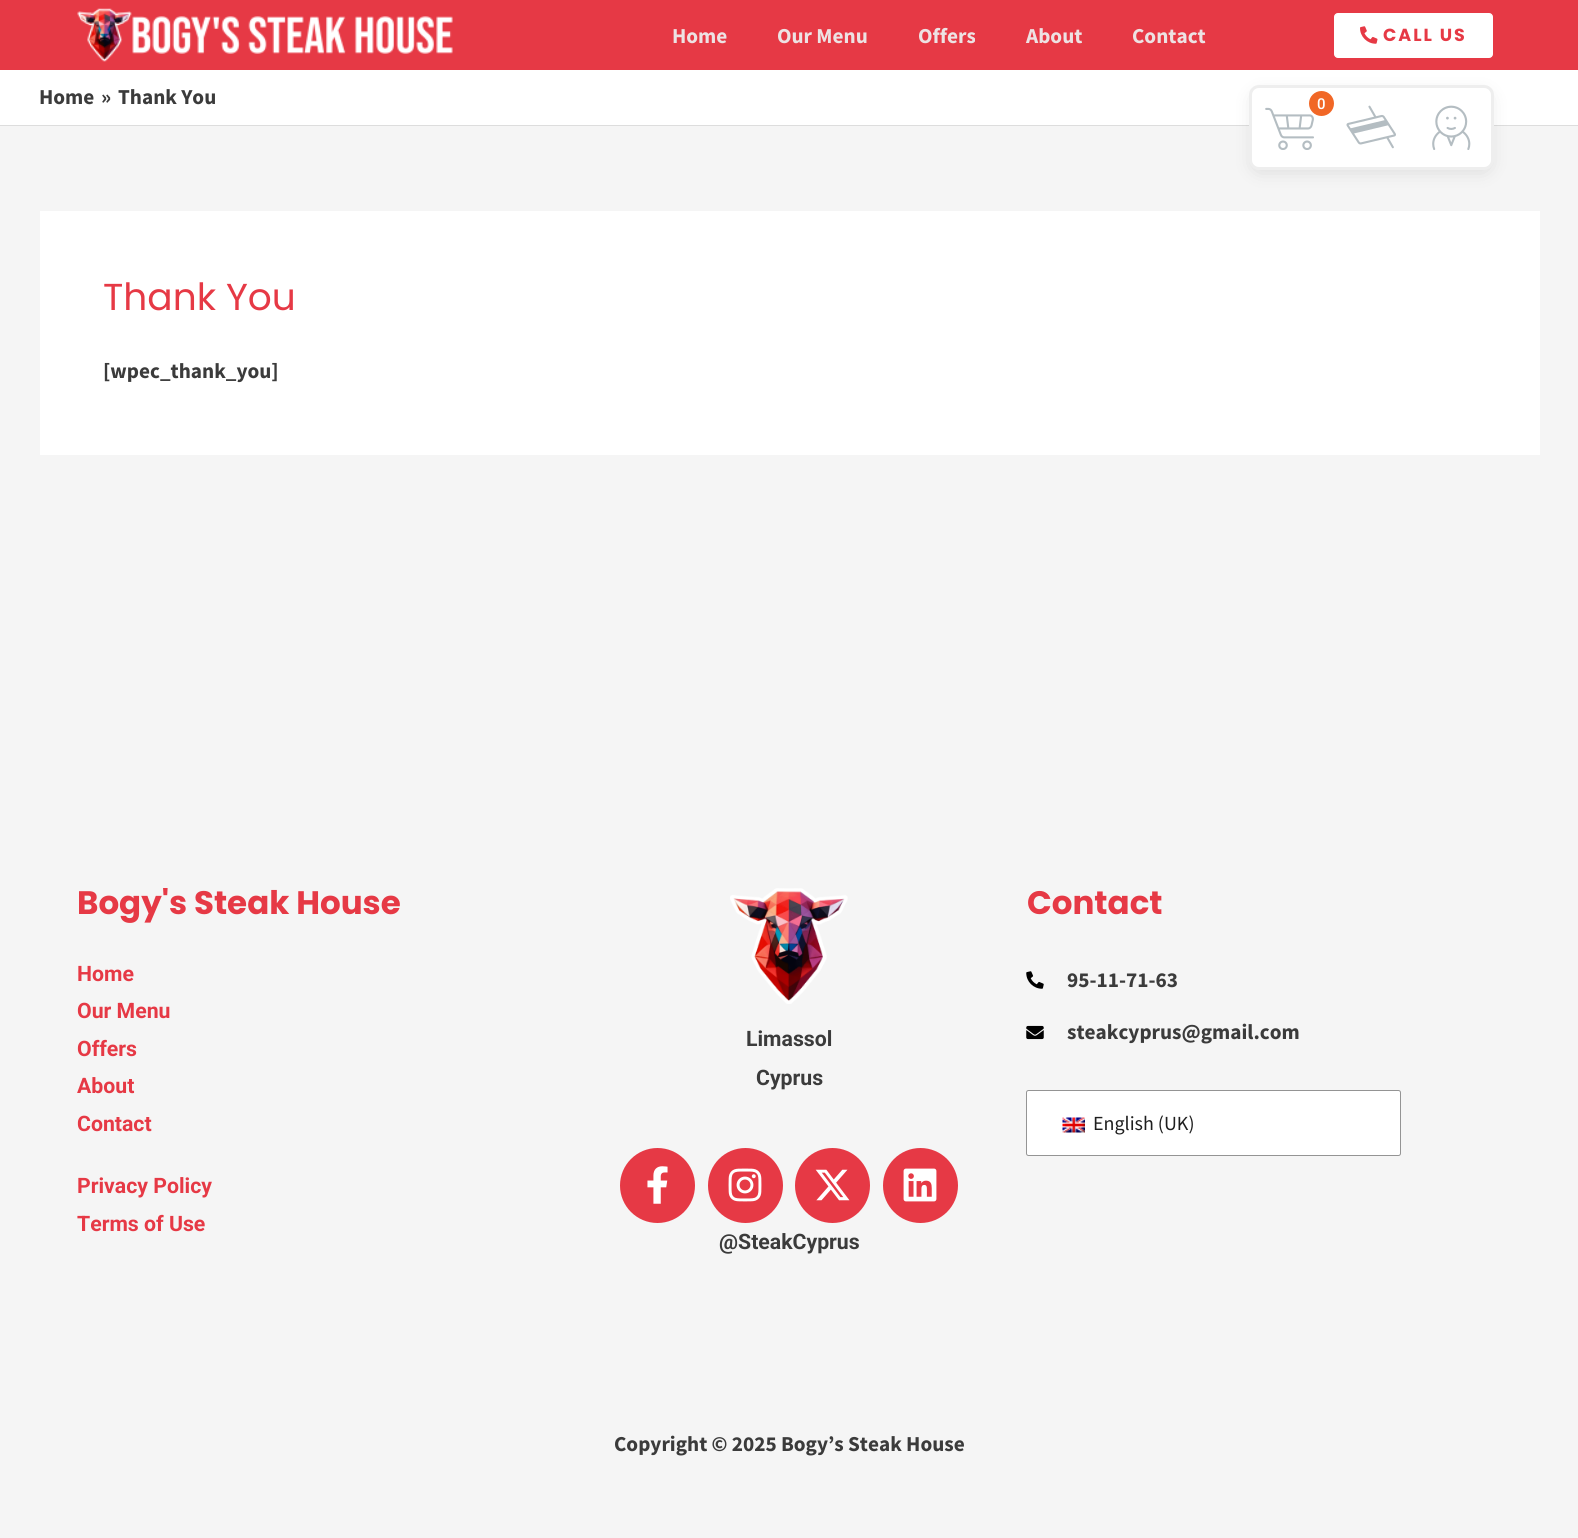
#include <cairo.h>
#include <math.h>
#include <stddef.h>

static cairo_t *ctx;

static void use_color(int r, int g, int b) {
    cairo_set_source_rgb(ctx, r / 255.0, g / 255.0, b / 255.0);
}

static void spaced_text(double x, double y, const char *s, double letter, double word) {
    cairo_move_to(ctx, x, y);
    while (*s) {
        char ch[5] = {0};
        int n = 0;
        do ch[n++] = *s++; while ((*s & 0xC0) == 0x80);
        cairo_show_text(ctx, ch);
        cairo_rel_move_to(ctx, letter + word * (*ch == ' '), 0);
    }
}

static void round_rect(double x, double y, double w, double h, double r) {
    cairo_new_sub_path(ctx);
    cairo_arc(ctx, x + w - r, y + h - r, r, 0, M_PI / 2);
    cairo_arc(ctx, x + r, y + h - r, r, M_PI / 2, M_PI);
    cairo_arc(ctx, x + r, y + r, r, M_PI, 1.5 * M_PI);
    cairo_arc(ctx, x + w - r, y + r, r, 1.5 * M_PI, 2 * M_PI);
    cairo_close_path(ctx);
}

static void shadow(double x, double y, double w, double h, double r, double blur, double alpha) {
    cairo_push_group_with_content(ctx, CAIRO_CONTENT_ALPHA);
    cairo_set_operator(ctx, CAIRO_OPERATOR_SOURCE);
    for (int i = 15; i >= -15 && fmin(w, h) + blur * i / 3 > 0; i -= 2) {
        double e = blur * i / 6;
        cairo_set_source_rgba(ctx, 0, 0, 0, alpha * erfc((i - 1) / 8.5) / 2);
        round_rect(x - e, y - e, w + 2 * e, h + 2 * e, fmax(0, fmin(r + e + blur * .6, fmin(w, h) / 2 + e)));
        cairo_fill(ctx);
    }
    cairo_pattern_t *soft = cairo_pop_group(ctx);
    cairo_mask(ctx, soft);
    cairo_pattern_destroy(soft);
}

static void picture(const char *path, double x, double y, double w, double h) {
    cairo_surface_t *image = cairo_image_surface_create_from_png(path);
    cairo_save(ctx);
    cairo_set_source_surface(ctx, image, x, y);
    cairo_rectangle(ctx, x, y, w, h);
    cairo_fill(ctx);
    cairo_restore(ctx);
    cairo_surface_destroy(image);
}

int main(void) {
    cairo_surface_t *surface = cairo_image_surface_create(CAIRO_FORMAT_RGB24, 1578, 1538);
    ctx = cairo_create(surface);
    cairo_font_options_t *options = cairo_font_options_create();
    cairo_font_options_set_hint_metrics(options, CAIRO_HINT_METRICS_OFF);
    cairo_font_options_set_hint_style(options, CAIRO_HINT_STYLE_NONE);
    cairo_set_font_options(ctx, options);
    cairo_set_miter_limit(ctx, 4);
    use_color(245, 245, 245);
    cairo_paint(ctx);
    use_color(255, 255, 255);
    cairo_rectangle(ctx, 0, 70, 1578, 55);
    cairo_fill(ctx);
    use_color(221, 221, 221);
    cairo_rectangle(ctx, 0, 125, 1578, 1);
    cairo_fill(ctx);
    use_color(0, 0, 0);
    shadow(1254, 95, 235, 75, 5, 10, 0.12);
    use_color(230, 57, 69);
    cairo_rectangle(ctx, 0, 0, 1578, 70);
    cairo_fill(ctx);
    picture("img1.png", 77, 8, 376, 54);
    cairo_select_font_face(ctx, "Source Sans Pro", CAIRO_FONT_SLANT_NORMAL, CAIRO_FONT_WEIGHT_BOLD);
    cairo_set_font_size(ctx, 21.25);
    use_color(237, 226, 227);
    cairo_move_to(ctx, 672, 43);
    cairo_show_text(ctx, "Home");
    cairo_move_to(ctx, 777, 43);
    cairo_show_text(ctx, "Our Menu");
    cairo_move_to(ctx, 918, 43);
    cairo_show_text(ctx, "Offers");
    cairo_move_to(ctx, 1026, 43);
    cairo_show_text(ctx, "About");
    cairo_move_to(ctx, 1132, 43);
    cairo_show_text(ctx, "Contact");
    use_color(255, 255, 255);
    round_rect(1334.5, 13.5, 158, 44, 3.5);
    cairo_fill_preserve(ctx);
    cairo_set_line_width(ctx, 1);
    cairo_stroke(ctx);
    picture("img2.png", 1360, 26, 18, 18);
    cairo_select_font_face(ctx, "Poppins", CAIRO_FONT_SLANT_NORMAL, CAIRO_FONT_WEIGHT_BOLD);
    cairo_set_font_size(ctx, 17.5);
    use_color(230, 57, 69);
    spaced_text(1383, 41, "CALL US", 2, 0);
    cairo_select_font_face(ctx, "Source Sans Pro", CAIRO_FONT_SLANT_NORMAL, CAIRO_FONT_WEIGHT_BOLD);
    cairo_set_font_size(ctx, 21.25);
    use_color(59, 59, 59);
    cairo_move_to(ctx, 39, 104);
    cairo_show_text(ctx, "Home");
    cairo_move_to(ctx, 101, 104);
    cairo_show_text(ctx, "»");
    cairo_move_to(ctx, 118, 104);
    cairo_show_text(ctx, "Thank You");
    use_color(255, 255, 255);
    cairo_rectangle(ctx, 40, 211, 1500, 244);
    cairo_fill(ctx);
    cairo_select_font_face(ctx, "Poppins", CAIRO_FONT_SLANT_NORMAL, CAIRO_FONT_WEIGHT_NORMAL);
    cairo_set_font_size(ctx, 37.5);
    use_color(230, 57, 69);
    cairo_move_to(ctx, 103, 310);
    cairo_show_text(ctx, "Thank You");
    cairo_select_font_face(ctx, "Source Sans Pro", CAIRO_FONT_SLANT_NORMAL, CAIRO_FONT_WEIGHT_BOLD);
    cairo_set_font_size(ctx, 21.25);
    use_color(59, 59, 59);
    cairo_move_to(ctx, 103, 378);
    cairo_show_text(ctx, "[wpec_thank_you]");
    cairo_select_font_face(ctx, "Poppins", CAIRO_FONT_SLANT_NORMAL, CAIRO_FONT_WEIGHT_BOLD);
    cairo_set_font_size(ctx, 32.5);
    use_color(230, 57, 69);
    cairo_move_to(ctx, 77, 914);
    cairo_show_text(ctx, "Bogy's Steak House");
    cairo_select_font_face(ctx, "Roboto", CAIRO_FONT_SLANT_NORMAL, CAIRO_FONT_WEIGHT_BOLD);
    cairo_set_font_size(ctx, 21.25);
    cairo_move_to(ctx, 77, 981);
    cairo_show_text(ctx, "Home");
    cairo_move_to(ctx, 77, 1018);
    cairo_show_text(ctx, "Our Menu");
    cairo_move_to(ctx, 77, 1056);
    cairo_show_text(ctx, "Offers");
    cairo_move_to(ctx, 77, 1093);
    cairo_show_text(ctx, "About");
    cairo_move_to(ctx, 77, 1131);
    cairo_show_text(ctx, "Contact");
    cairo_move_to(ctx, 77, 1193);
    cairo_show_text(ctx, "Privacy Policy");
    cairo_move_to(ctx, 77, 1231);
    cairo_show_text(ctx, "Terms of Use");
    picture("img3.png", 730, 888, 118, 116);
    use_color(59, 59, 59);
    cairo_move_to(ctx, 746, 1046);
    cairo_show_text(ctx, "Limassol");
    cairo_move_to(ctx, 756, 1085);
    cairo_show_text(ctx, "Cyprus");
    use_color(230, 57, 69);
    cairo_new_path(ctx);
    cairo_arc(ctx, 657.5, 1185.5, 37.5, 0, 2 * M_PI);
    cairo_fill(ctx);
    picture("img4.png", 647, 1166, 21, 38);
    cairo_arc(ctx, 745.5, 1185.5, 37.5, 0, 2 * M_PI);
    cairo_fill(ctx);
    picture("img5.png", 728, 1168, 34, 34);
    cairo_arc(ctx, 832.5, 1185.5, 37.5, 0, 2 * M_PI);
    cairo_fill(ctx);
    picture("img6.png", 815, 1169, 35, 32);
    cairo_arc(ctx, 920.5, 1185.5, 37.5, 0, 2 * M_PI);
    cairo_fill(ctx);
    picture("img7.png", 903, 1168, 34, 34);
    use_color(59, 59, 59);
    cairo_move_to(ctx, 719, 1249);
    cairo_show_text(ctx, "@SteakCyprus");
    cairo_select_font_face(ctx, "Poppins", CAIRO_FONT_SLANT_NORMAL, CAIRO_FONT_WEIGHT_BOLD);
    cairo_set_font_size(ctx, 32.5);
    use_color(230, 57, 69);
    cairo_move_to(ctx, 1027, 914);
    cairo_show_text(ctx, "Contact");
    picture("img8.png", 1026, 971, 18, 18);
    cairo_select_font_face(ctx, "Source Sans Pro", CAIRO_FONT_SLANT_NORMAL, CAIRO_FONT_WEIGHT_BOLD);
    cairo_set_font_size(ctx, 21.25);
    use_color(59, 59, 59);
    cairo_move_to(ctx, 1067, 987);
    cairo_show_text(ctx, "95-11-71-63");
    picture("img9.png", 1026, 1025, 18, 15);
    cairo_move_to(ctx, 1067, 1039);
    cairo_show_text(ctx, "steakcyprus@gmail.com");
    use_color(255, 255, 255);
    round_rect(1026.5, 1090.5, 374, 65, 2);
    cairo_fill_preserve(ctx);
    use_color(148, 148, 148);
    cairo_stroke(ctx);
    picture("img10.png", 1062, 1117, 23, 16);
    cairo_select_font_face(ctx, "Source Sans Pro", CAIRO_FONT_SLANT_NORMAL, CAIRO_FONT_WEIGHT_NORMAL);
    cairo_set_font_size(ctx, 20);
    use_color(30, 30, 30);
    cairo_move_to(ctx, 1093, 1130);
    cairo_show_text(ctx, "English (UK)");
    cairo_select_font_face(ctx, "Source Sans Pro", CAIRO_FONT_SLANT_NORMAL, CAIRO_FONT_WEIGHT_BOLD);
    cairo_set_font_size(ctx, 21.25);
    use_color(59, 59, 59);
    cairo_move_to(ctx, 614, 1451);
    cairo_show_text(ctx, "Copyright © 2025 Bogy’s Steak House");
    use_color(255, 255, 255);
    round_rect(1250.5, 86.5, 242, 82, 8.5);
    cairo_fill_preserve(ctx);
    use_color(238, 238, 238);
    cairo_set_line_width(ctx, 3);
    cairo_stroke(ctx);
    picture("img11.png", 1265, 107, 49, 43);
    use_color(241, 103, 38);
    cairo_arc(ctx, 1321.5, 103.5, 12.5, 0, 2 * M_PI);
    cairo_fill(ctx);
    cairo_select_font_face(ctx, "Roboto Medium", CAIRO_FONT_SLANT_NORMAL, CAIRO_FONT_WEIGHT_NORMAL);
    cairo_set_font_size(ctx, 15);
    use_color(255, 255, 255);
    cairo_move_to(ctx, 1317, 109);
    cairo_show_text(ctx, "0");
    picture("img12.png", 1346, 105, 50, 44);
    picture("img13.png", 1432, 105, 39, 45);
    cairo_surface_write_to_png(surface, "result.png");
    cairo_font_options_destroy(options);
    cairo_destroy(ctx);
    cairo_surface_destroy(surface);
    return 0;
}
